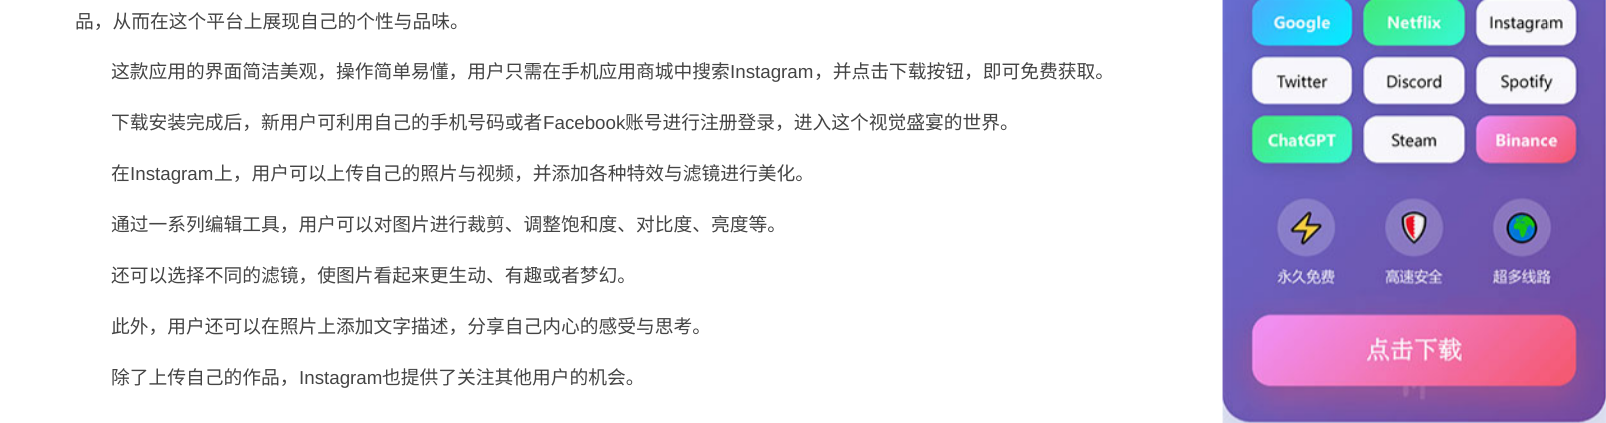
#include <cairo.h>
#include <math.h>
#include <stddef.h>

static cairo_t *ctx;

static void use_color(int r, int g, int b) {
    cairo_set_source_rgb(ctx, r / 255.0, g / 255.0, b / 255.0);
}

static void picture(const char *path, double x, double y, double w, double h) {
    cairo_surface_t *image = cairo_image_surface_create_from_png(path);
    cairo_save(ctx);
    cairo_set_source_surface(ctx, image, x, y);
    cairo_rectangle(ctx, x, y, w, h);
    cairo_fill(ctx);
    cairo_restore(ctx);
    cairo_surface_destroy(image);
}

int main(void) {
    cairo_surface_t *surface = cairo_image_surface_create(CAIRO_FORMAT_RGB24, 1606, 423);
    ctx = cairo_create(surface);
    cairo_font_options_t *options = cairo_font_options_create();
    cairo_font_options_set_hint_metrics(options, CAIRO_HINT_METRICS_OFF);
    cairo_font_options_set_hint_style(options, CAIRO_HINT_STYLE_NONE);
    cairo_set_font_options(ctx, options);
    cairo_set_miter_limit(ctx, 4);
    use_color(255, 255, 255);
    cairo_paint(ctx);
    cairo_select_font_face(ctx, "Noto Sans CJK SC", CAIRO_FONT_SLANT_NORMAL, CAIRO_FONT_WEIGHT_NORMAL);
    cairo_set_font_size(ctx, 18.75);
    use_color(68, 68, 68);
    cairo_move_to(ctx, 75, 28);
    cairo_show_text(ctx, "品，从而在这个平台上展现自己的个性与品味。");
    cairo_move_to(ctx, 111, 78);
    cairo_show_text(ctx, "这款应用的界面简洁美观，操作简单易懂，用户只需在手机应用商城中搜索");
    cairo_select_font_face(ctx, "Liberation Sans", CAIRO_FONT_SLANT_NORMAL, CAIRO_FONT_WEIGHT_NORMAL);
    cairo_move_to(ctx, 730, 78);
    cairo_show_text(ctx, "Instagram");
    cairo_select_font_face(ctx, "Noto Sans CJK SC", CAIRO_FONT_SLANT_NORMAL, CAIRO_FONT_WEIGHT_NORMAL);
    cairo_move_to(ctx, 814, 78);
    cairo_show_text(ctx, "，并点击下载按钮，即可免费获取。");
    cairo_move_to(ctx, 111, 129);
    cairo_show_text(ctx, "下载安装完成后，新用户可利用自己的手机号码或者");
    cairo_select_font_face(ctx, "Liberation Sans", CAIRO_FONT_SLANT_NORMAL, CAIRO_FONT_WEIGHT_NORMAL);
    cairo_move_to(ctx, 543, 129);
    cairo_show_text(ctx, "Facebook");
    cairo_select_font_face(ctx, "Noto Sans CJK SC", CAIRO_FONT_SLANT_NORMAL, CAIRO_FONT_WEIGHT_NORMAL);
    cairo_move_to(ctx, 625, 129);
    cairo_show_text(ctx, "账号进行注册登录，进入这个视觉盛宴的世界。");
    cairo_move_to(ctx, 111, 180);
    cairo_show_text(ctx, "在");
    cairo_select_font_face(ctx, "Liberation Sans", CAIRO_FONT_SLANT_NORMAL, CAIRO_FONT_WEIGHT_NORMAL);
    cairo_move_to(ctx, 130, 180);
    cairo_show_text(ctx, "Instagram");
    cairo_select_font_face(ctx, "Noto Sans CJK SC", CAIRO_FONT_SLANT_NORMAL, CAIRO_FONT_WEIGHT_NORMAL);
    cairo_move_to(ctx, 214, 180);
    cairo_show_text(ctx, "上，用户可以上传自己的照片与视频，并添加各种特效与滤镜进行美化。");
    cairo_move_to(ctx, 111, 231);
    cairo_show_text(ctx, "通过一系列编辑工具，用户可以对图片进行裁剪、调整饱和度、对比度、亮度等。");
    cairo_move_to(ctx, 111, 282);
    cairo_show_text(ctx, "还可以选择不同的滤镜，使图片看起来更生动、有趣或者梦幻。");
    cairo_move_to(ctx, 111, 333);
    cairo_show_text(ctx, "此外，用户还可以在照片上添加文字描述，分享自己内心的感受与思考。");
    cairo_move_to(ctx, 111, 384);
    cairo_show_text(ctx, "除了上传自己的作品，");
    cairo_select_font_face(ctx, "Liberation Sans", CAIRO_FONT_SLANT_NORMAL, CAIRO_FONT_WEIGHT_NORMAL);
    cairo_move_to(ctx, 299, 384);
    cairo_show_text(ctx, "Instagram");
    cairo_select_font_face(ctx, "Noto Sans CJK SC", CAIRO_FONT_SLANT_NORMAL, CAIRO_FONT_WEIGHT_NORMAL);
    cairo_move_to(ctx, 382, 384);
    cairo_show_text(ctx, "也提供了关注其他用户的机会。");
    picture("img1.png", 1222, 0, 384, 423);
    cairo_surface_write_to_png(surface, "result.png");
    cairo_font_options_destroy(options);
    cairo_destroy(ctx);
    cairo_surface_destroy(surface);
    return 0;
}
